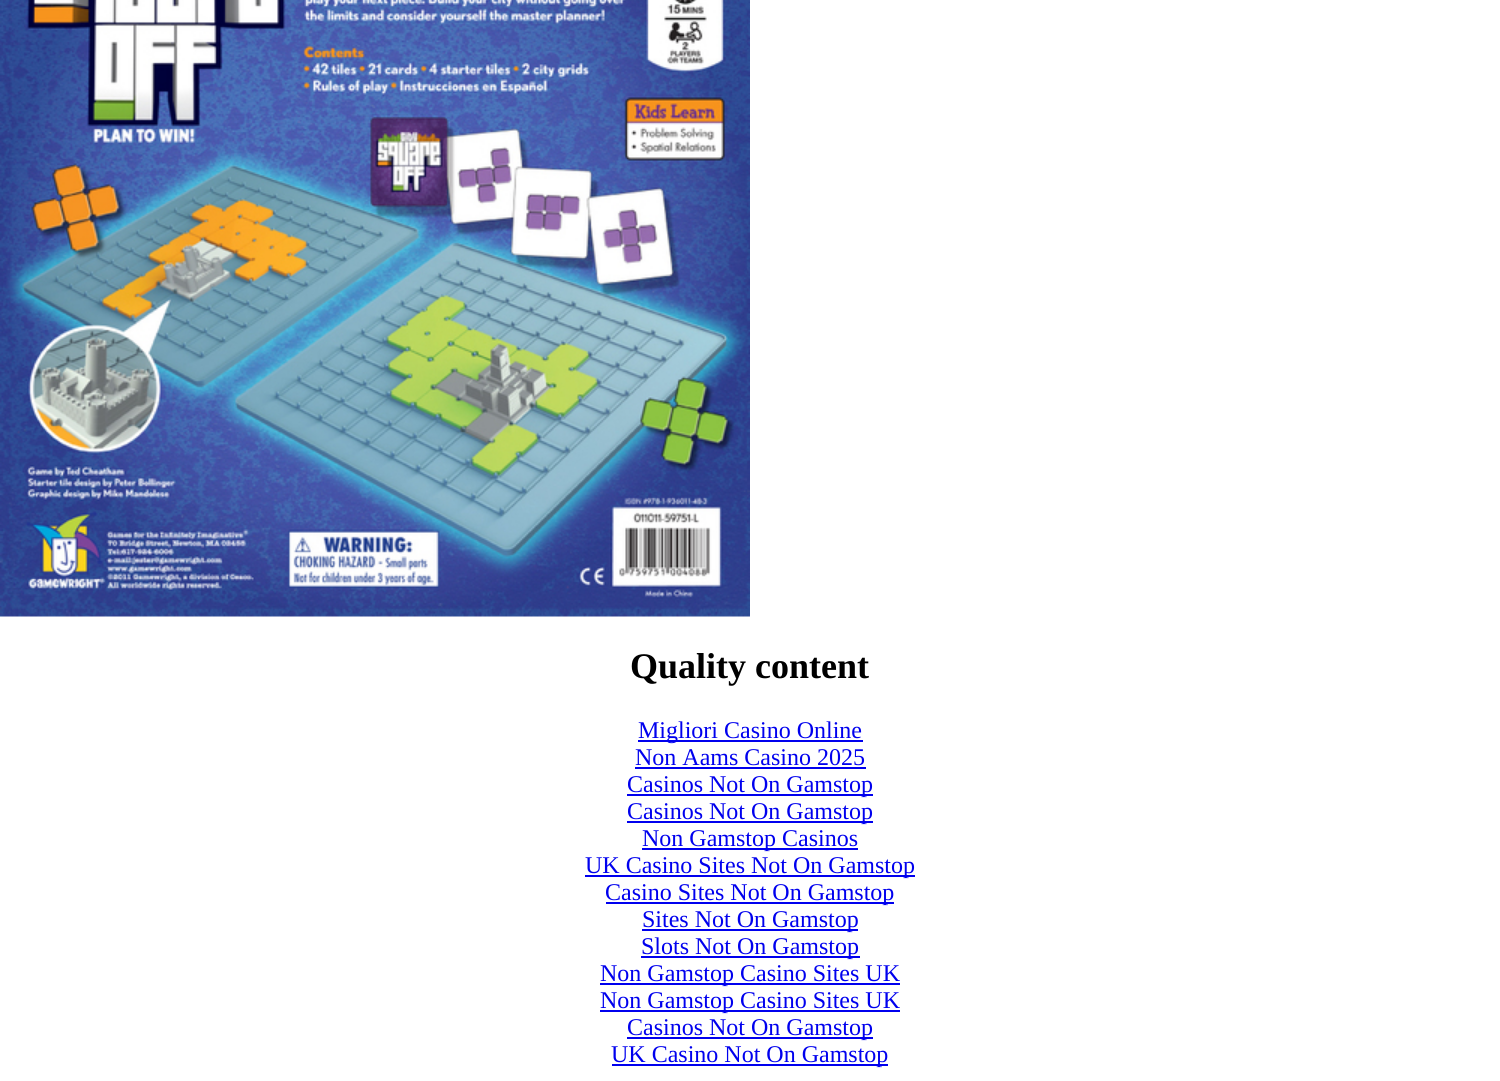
#include <cairo.h>
#include <math.h>
#include <stddef.h>

static cairo_t *ctx;

static void use_color(int r, int g, int b) {
    cairo_set_source_rgb(ctx, r / 255.0, g / 255.0, b / 255.0);
}

static void picture(const char *path, double x, double y, double w, double h) {
    cairo_surface_t *image = cairo_image_surface_create_from_png(path);
    cairo_save(ctx);
    cairo_set_source_surface(ctx, image, x, y);
    cairo_rectangle(ctx, x, y, w, h);
    cairo_fill(ctx);
    cairo_restore(ctx);
    cairo_surface_destroy(image);
}

int main(void) {
    cairo_surface_t *surface = cairo_image_surface_create(CAIRO_FORMAT_RGB24, 1500, 1081);
    ctx = cairo_create(surface);
    cairo_font_options_t *options = cairo_font_options_create();
    cairo_font_options_set_hint_metrics(options, CAIRO_HINT_METRICS_OFF);
    cairo_font_options_set_hint_style(options, CAIRO_HINT_STYLE_NONE);
    cairo_set_font_options(ctx, options);
    cairo_set_miter_limit(ctx, 4);
    use_color(255, 255, 255);
    cairo_paint(ctx);
    picture("img1.png", 0, 0, 750, 617);
    cairo_select_font_face(ctx, "Liberation Serif", CAIRO_FONT_SLANT_NORMAL, CAIRO_FONT_WEIGHT_BOLD);
    cairo_set_font_size(ctx, 36);
    use_color(0, 0, 0);
    cairo_move_to(ctx, 630, 678);
    cairo_show_text(ctx, "Quality content");
    use_color(0, 0, 238);
    cairo_rectangle(ctx, 638, 740, 225, 2);
    cairo_fill(ctx);
    cairo_select_font_face(ctx, "Liberation Serif", CAIRO_FONT_SLANT_NORMAL, CAIRO_FONT_WEIGHT_NORMAL);
    cairo_set_font_size(ctx, 24);
    cairo_move_to(ctx, 638, 738);
    cairo_show_text(ctx, "Migliori Casino Online");
    cairo_move_to(ctx, 635, 765);
    cairo_show_text(ctx, "Non Aams Casino 2025");
    cairo_rectangle(ctx, 635, 767, 231, 2);
    cairo_fill(ctx);
    cairo_rectangle(ctx, 627, 794, 246, 2);
    cairo_fill(ctx);
    cairo_move_to(ctx, 627, 792);
    cairo_show_text(ctx, "Casinos Not On Gamstop");
    cairo_rectangle(ctx, 627, 821, 246, 2);
    cairo_fill(ctx);
    cairo_move_to(ctx, 627, 819);
    cairo_show_text(ctx, "Casinos Not On Gamstop");
    cairo_rectangle(ctx, 642, 848, 216, 2);
    cairo_fill(ctx);
    cairo_move_to(ctx, 642, 846);
    cairo_show_text(ctx, "Non Gamstop Casinos");
    cairo_rectangle(ctx, 585, 875, 330, 2);
    cairo_fill(ctx);
    cairo_move_to(ctx, 585, 873);
    cairo_show_text(ctx, "UK Casino Sites Not On Gamstop");
    cairo_rectangle(ctx, 606, 902, 288, 2);
    cairo_fill(ctx);
    cairo_move_to(ctx, 605, 900);
    cairo_show_text(ctx, "Casino Sites Not On Gamstop");
    cairo_rectangle(ctx, 642, 929, 216, 2);
    cairo_fill(ctx);
    cairo_move_to(ctx, 642, 927);
    cairo_show_text(ctx, "Sites Not On Gamstop");
    cairo_rectangle(ctx, 641, 956, 219, 2);
    cairo_fill(ctx);
    cairo_move_to(ctx, 641, 954);
    cairo_show_text(ctx, "Slots Not On Gamstop");
    cairo_rectangle(ctx, 600, 983, 300, 2);
    cairo_fill(ctx);
    cairo_move_to(ctx, 600, 981);
    cairo_show_text(ctx, "Non Gamstop Casino Sites UK");
    cairo_rectangle(ctx, 600, 1010, 300, 2);
    cairo_fill(ctx);
    cairo_move_to(ctx, 600, 1008);
    cairo_show_text(ctx, "Non Gamstop Casino Sites UK");
    cairo_rectangle(ctx, 627, 1037, 246, 2);
    cairo_fill(ctx);
    cairo_move_to(ctx, 627, 1035);
    cairo_show_text(ctx, "Casinos Not On Gamstop");
    cairo_rectangle(ctx, 612, 1064, 276, 2);
    cairo_fill(ctx);
    cairo_move_to(ctx, 611, 1062);
    cairo_show_text(ctx, "UK Casino Not On Gamstop");
    cairo_surface_write_to_png(surface, "result.png");
    cairo_font_options_destroy(options);
    cairo_destroy(ctx);
    cairo_surface_destroy(surface);
    return 0;
}
